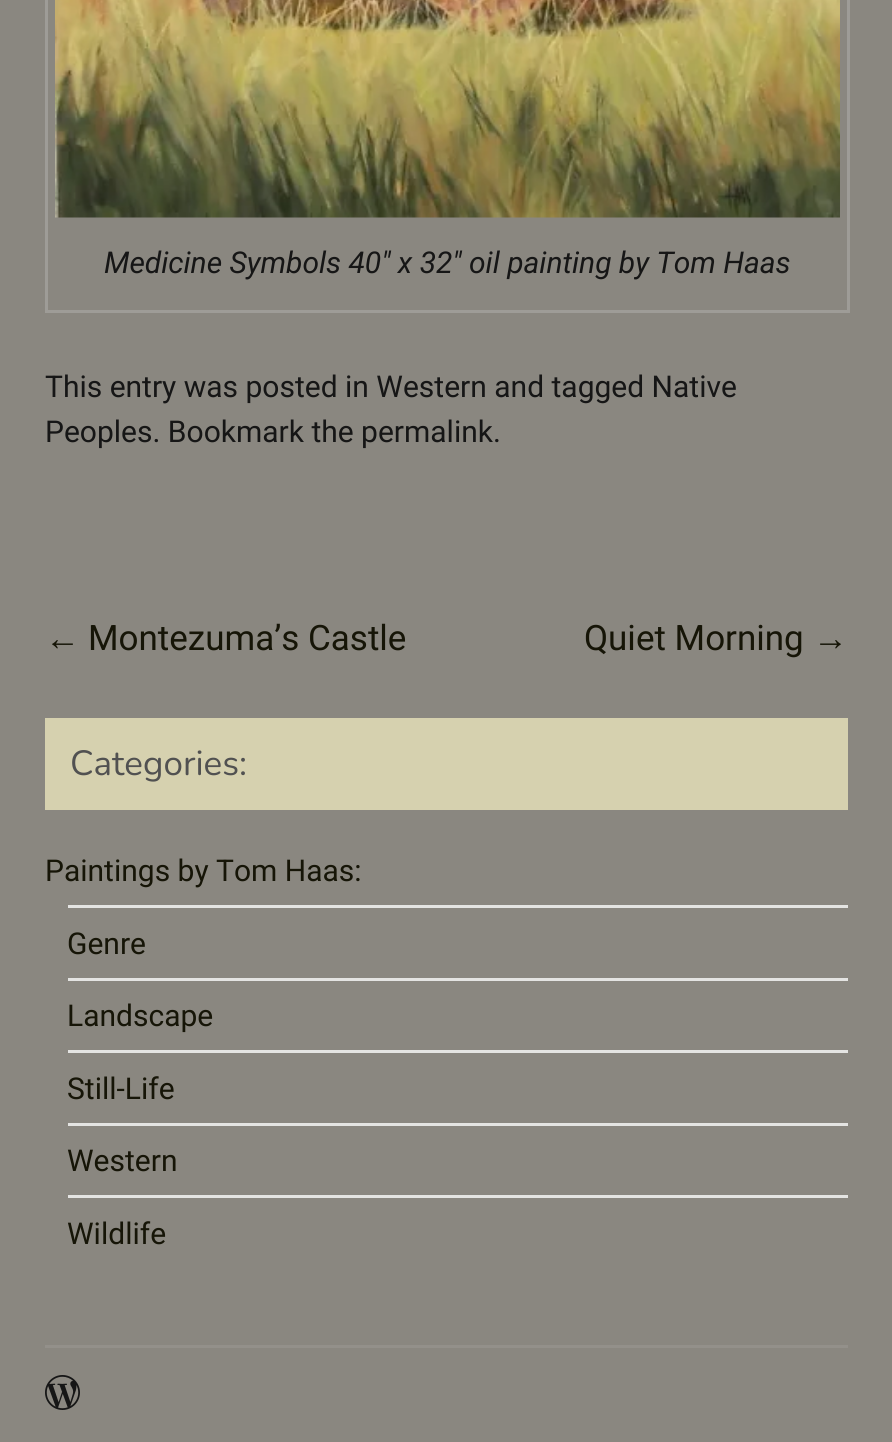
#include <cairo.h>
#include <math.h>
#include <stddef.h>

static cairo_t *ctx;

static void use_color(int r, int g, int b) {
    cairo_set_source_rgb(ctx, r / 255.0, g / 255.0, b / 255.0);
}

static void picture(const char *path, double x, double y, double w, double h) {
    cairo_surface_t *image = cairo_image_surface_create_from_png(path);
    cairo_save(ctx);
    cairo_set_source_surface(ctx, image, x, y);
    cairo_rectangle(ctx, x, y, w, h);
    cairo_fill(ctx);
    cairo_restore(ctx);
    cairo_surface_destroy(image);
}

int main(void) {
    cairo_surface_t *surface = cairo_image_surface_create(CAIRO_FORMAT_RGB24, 892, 1442);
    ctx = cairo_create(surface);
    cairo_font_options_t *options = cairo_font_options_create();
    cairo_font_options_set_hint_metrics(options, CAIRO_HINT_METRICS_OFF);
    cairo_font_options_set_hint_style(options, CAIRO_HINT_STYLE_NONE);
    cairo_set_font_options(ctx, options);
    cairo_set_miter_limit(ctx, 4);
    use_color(138, 135, 128);
    cairo_paint(ctx);
    cairo_rectangle(ctx, 46.5, -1.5, 802, 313);
    use_color(158, 156, 151);
    cairo_set_line_width(ctx, 3);
    cairo_stroke(ctx);
    picture("img1.png", 55, 0, 785, 218);
    cairo_select_font_face(ctx, "Roboto", CAIRO_FONT_SLANT_ITALIC, CAIRO_FONT_WEIGHT_NORMAL);
    cairo_set_font_size(ctx, 30);
    use_color(22, 22, 22);
    cairo_move_to(ctx, 104, 273);
    cairo_show_text(ctx, "Medicine Symbols 40″ x 32″ oil painting by Tom Haas");
    cairo_select_font_face(ctx, "Roboto", CAIRO_FONT_SLANT_NORMAL, CAIRO_FONT_WEIGHT_NORMAL);
    cairo_move_to(ctx, 45, 397);
    cairo_show_text(ctx, "This entry was posted in Western and tagged Native");
    cairo_move_to(ctx, 45, 442);
    cairo_show_text(ctx, "Peoples. Bookmark the permalink.");
    cairo_select_font_face(ctx, "Liberation Sans", CAIRO_FONT_SLANT_NORMAL, CAIRO_FONT_WEIGHT_NORMAL);
    cairo_set_font_size(ctx, 35);
    use_color(22, 21, 7);
    cairo_move_to(ctx, 45, 650);
    cairo_show_text(ctx, "←");
    cairo_select_font_face(ctx, "Roboto", CAIRO_FONT_SLANT_NORMAL, CAIRO_FONT_WEIGHT_NORMAL);
    cairo_move_to(ctx, 88, 650);
    cairo_show_text(ctx, "Montezuma’s Castle");
    cairo_move_to(ctx, 584, 650);
    cairo_show_text(ctx, "Quiet Morning");
    cairo_select_font_face(ctx, "Liberation Sans", CAIRO_FONT_SLANT_NORMAL, CAIRO_FONT_WEIGHT_NORMAL);
    cairo_move_to(ctx, 813, 650);
    cairo_show_text(ctx, "→");
    use_color(214, 209, 175);
    cairo_rectangle(ctx, 45, 718, 803, 92);
    cairo_fill(ctx);
    cairo_select_font_face(ctx, "Nunito ExtraLight", CAIRO_FONT_SLANT_NORMAL, CAIRO_FONT_WEIGHT_NORMAL);
    use_color(81, 81, 81);
    cairo_move_to(ctx, 70, 775);
    cairo_show_text(ctx, "Categories:");
    cairo_select_font_face(ctx, "Roboto", CAIRO_FONT_SLANT_NORMAL, CAIRO_FONT_WEIGHT_NORMAL);
    cairo_set_font_size(ctx, 30);
    use_color(22, 21, 7);
    cairo_move_to(ctx, 45, 881);
    cairo_show_text(ctx, "Paintings by Tom Haas:");
    use_color(228, 228, 226);
    cairo_rectangle(ctx, 68, 905, 780, 3);
    cairo_fill(ctx);
    use_color(22, 21, 7);
    cairo_move_to(ctx, 67, 954);
    cairo_show_text(ctx, "Genre");
    use_color(228, 228, 226);
    cairo_rectangle(ctx, 68, 978, 780, 3);
    cairo_fill(ctx);
    use_color(22, 21, 7);
    cairo_move_to(ctx, 67, 1026);
    cairo_show_text(ctx, "Landscape");
    use_color(228, 228, 226);
    cairo_rectangle(ctx, 68, 1050, 780, 3);
    cairo_fill(ctx);
    use_color(22, 21, 7);
    cairo_move_to(ctx, 67, 1099);
    cairo_show_text(ctx, "Still-Life");
    use_color(228, 228, 226);
    cairo_rectangle(ctx, 68, 1123, 780, 3);
    cairo_fill(ctx);
    use_color(22, 21, 7);
    cairo_move_to(ctx, 67, 1171);
    cairo_show_text(ctx, "Western");
    use_color(228, 228, 226);
    cairo_rectangle(ctx, 68, 1195, 780, 3);
    cairo_fill(ctx);
    use_color(22, 21, 7);
    cairo_move_to(ctx, 67, 1244);
    cairo_show_text(ctx, "Wildlife");
    use_color(147, 144, 138);
    cairo_rectangle(ctx, 45, 1345, 803, 3);
    cairo_fill(ctx);
    picture("img2.png", 45, 1375, 35, 35);
    cairo_surface_write_to_png(surface, "result.png");
    cairo_font_options_destroy(options);
    cairo_destroy(ctx);
    cairo_surface_destroy(surface);
    return 0;
}
